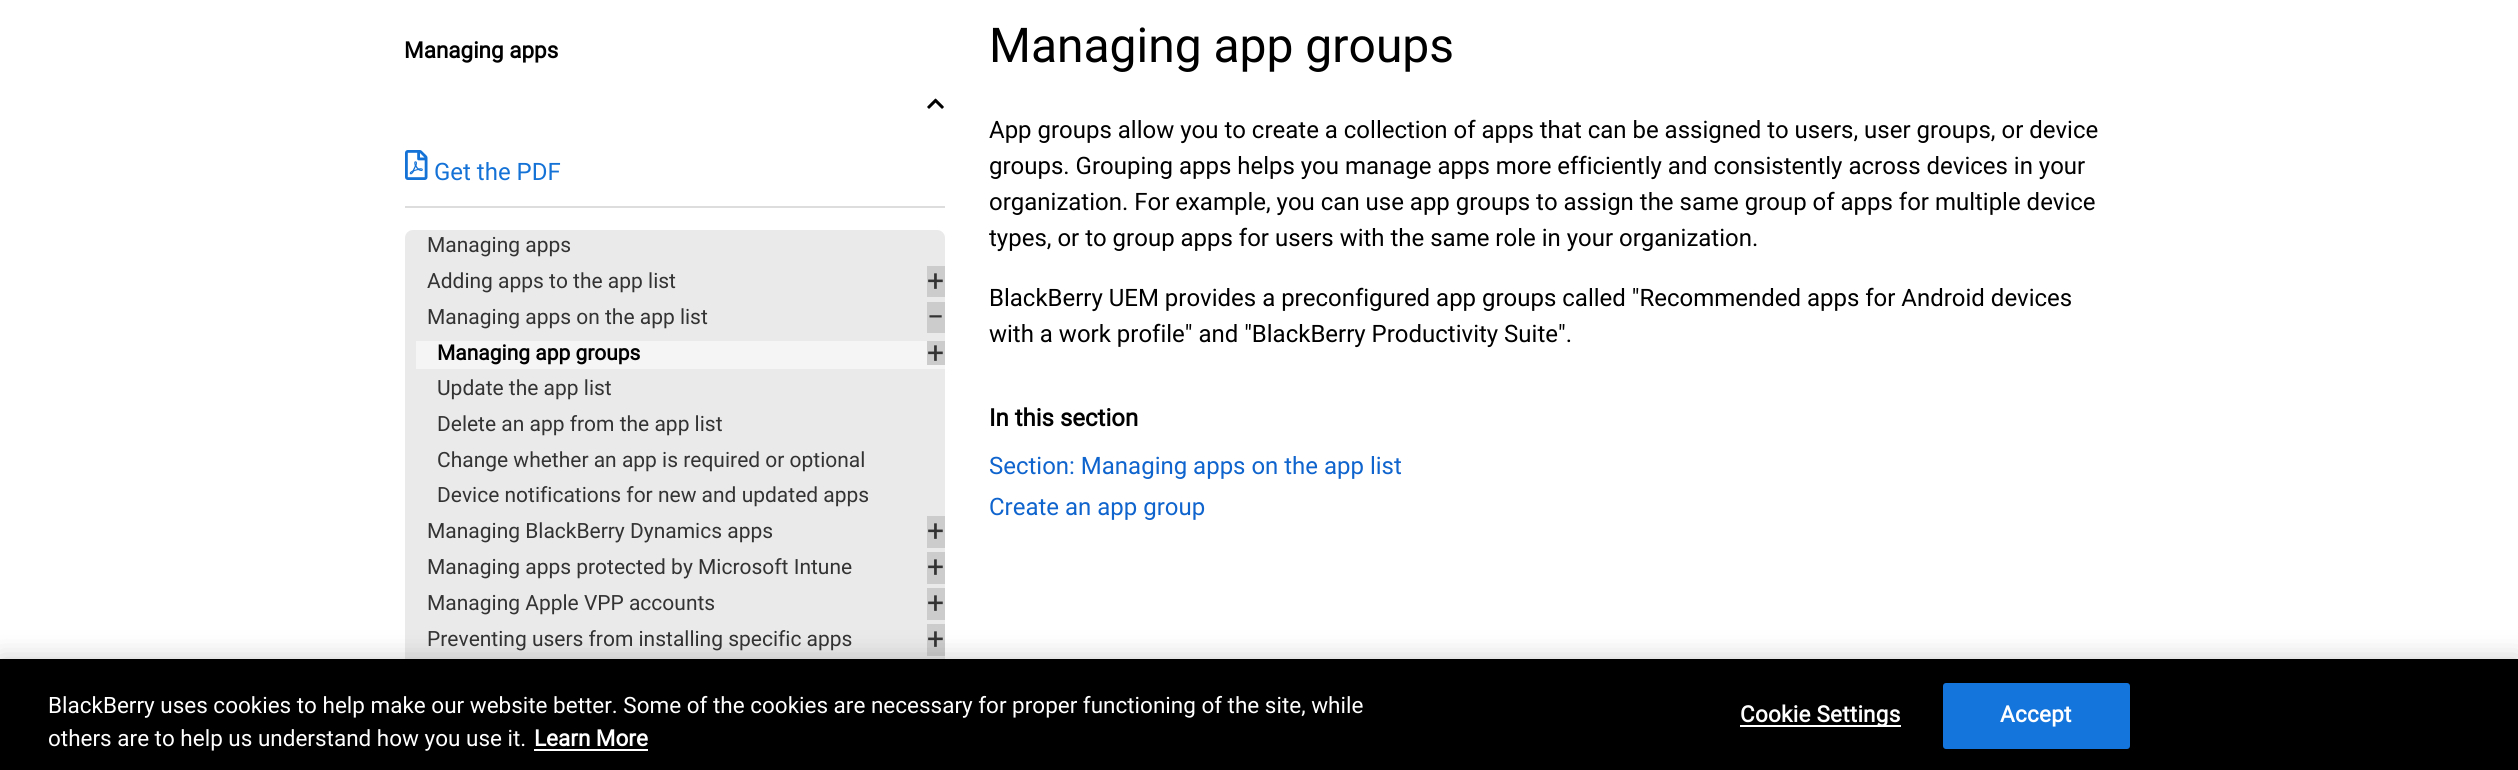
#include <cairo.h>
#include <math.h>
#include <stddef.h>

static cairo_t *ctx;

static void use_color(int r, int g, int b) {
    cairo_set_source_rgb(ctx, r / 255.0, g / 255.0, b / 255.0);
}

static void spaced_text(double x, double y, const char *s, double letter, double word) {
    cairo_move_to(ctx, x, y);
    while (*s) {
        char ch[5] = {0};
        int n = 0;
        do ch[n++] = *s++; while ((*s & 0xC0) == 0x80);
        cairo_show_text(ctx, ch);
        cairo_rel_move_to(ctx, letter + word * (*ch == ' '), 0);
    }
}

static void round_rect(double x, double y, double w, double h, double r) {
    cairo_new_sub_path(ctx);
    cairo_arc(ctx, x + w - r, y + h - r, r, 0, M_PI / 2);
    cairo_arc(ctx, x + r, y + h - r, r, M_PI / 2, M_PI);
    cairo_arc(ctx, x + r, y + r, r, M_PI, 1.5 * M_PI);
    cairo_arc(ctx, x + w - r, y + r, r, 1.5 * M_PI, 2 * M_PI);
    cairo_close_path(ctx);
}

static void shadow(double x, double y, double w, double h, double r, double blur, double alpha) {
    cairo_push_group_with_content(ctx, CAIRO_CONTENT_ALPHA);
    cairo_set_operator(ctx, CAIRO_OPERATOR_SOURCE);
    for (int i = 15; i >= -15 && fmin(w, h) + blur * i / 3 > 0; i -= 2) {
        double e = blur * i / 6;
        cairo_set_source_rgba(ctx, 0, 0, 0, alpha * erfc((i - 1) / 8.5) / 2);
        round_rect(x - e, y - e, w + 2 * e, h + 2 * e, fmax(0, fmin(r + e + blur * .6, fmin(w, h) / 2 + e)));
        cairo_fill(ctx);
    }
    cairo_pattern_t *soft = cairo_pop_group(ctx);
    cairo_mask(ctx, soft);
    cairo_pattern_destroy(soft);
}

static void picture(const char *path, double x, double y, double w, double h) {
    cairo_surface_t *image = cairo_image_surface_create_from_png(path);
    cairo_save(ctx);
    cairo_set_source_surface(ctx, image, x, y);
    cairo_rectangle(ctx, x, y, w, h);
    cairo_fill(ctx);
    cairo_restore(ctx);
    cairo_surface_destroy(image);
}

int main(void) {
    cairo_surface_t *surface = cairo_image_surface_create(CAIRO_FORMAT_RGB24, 2518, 770);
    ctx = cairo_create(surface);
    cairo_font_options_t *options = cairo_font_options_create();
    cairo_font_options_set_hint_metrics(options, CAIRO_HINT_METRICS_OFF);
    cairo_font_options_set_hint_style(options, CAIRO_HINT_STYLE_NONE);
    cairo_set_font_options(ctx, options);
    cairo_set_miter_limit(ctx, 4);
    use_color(255, 255, 255);
    cairo_paint(ctx);
    cairo_select_font_face(ctx, "Roboto", CAIRO_FONT_SLANT_NORMAL, CAIRO_FONT_WEIGHT_BOLD);
    cairo_set_font_size(ctx, 22.5);
    use_color(0, 0, 0);
    cairo_move_to(ctx, 404, 58);
    cairo_show_text(ctx, "Managing apps");
    picture("img1.png", 927, 98, 17, 11);
    use_color(221, 221, 221);
    cairo_rectangle(ctx, 405, 206, 540, 2);
    cairo_fill(ctx);
    picture("img2.png", 405, 150, 23, 30);
    cairo_select_font_face(ctx, "Roboto", CAIRO_FONT_SLANT_NORMAL, CAIRO_FONT_WEIGHT_NORMAL);
    cairo_set_font_size(ctx, 24);
    use_color(20, 114, 215);
    cairo_move_to(ctx, 434, 180);
    cairo_show_text(ctx, "Get the PDF");
    use_color(234, 234, 234);
    round_rect(405, 230, 540, 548, 8);
    cairo_fill(ctx);
    cairo_set_font_size(ctx, 21);
    use_color(51, 51, 51);
    cairo_move_to(ctx, 427, 252);
    cairo_show_text(ctx, "Managing apps");
    cairo_move_to(ctx, 427, 288);
    cairo_show_text(ctx, "Adding apps to the app list");
    use_color(204, 204, 204);
    cairo_rectangle(ctx, 927, 266, 18, 31);
    cairo_fill(ctx);
    cairo_set_font_size(ctx, 30);
    use_color(51, 51, 51);
    cairo_move_to(ctx, 927, 291);
    cairo_show_text(ctx, "+");
    cairo_set_font_size(ctx, 21);
    cairo_move_to(ctx, 427, 324);
    cairo_show_text(ctx, "Managing apps on the app list");
    use_color(204, 204, 204);
    cairo_rectangle(ctx, 927, 302, 18, 31);
    cairo_fill(ctx);
    cairo_set_font_size(ctx, 30);
    use_color(51, 51, 51);
    cairo_move_to(ctx, 927, 327);
    cairo_show_text(ctx, "−");
    use_color(245, 245, 245);
    cairo_rectangle(ctx, 416, 341, 529, 28);
    cairo_fill(ctx);
    cairo_select_font_face(ctx, "Roboto", CAIRO_FONT_SLANT_NORMAL, CAIRO_FONT_WEIGHT_BOLD);
    cairo_set_font_size(ctx, 21);
    use_color(0, 0, 0);
    cairo_move_to(ctx, 437, 360);
    cairo_show_text(ctx, "Managing app groups");
    use_color(204, 204, 204);
    cairo_rectangle(ctx, 927, 341, 18, 24);
    cairo_fill(ctx);
    cairo_select_font_face(ctx, "Roboto", CAIRO_FONT_SLANT_NORMAL, CAIRO_FONT_WEIGHT_NORMAL);
    cairo_set_font_size(ctx, 30);
    use_color(51, 51, 51);
    cairo_move_to(ctx, 927, 363);
    cairo_show_text(ctx, "+");
    cairo_set_font_size(ctx, 21);
    cairo_move_to(ctx, 437, 395);
    cairo_show_text(ctx, "Update the app list");
    cairo_move_to(ctx, 437, 431);
    cairo_show_text(ctx, "Delete an app from the app list");
    cairo_move_to(ctx, 437, 467);
    cairo_show_text(ctx, "Change whether an app is required or optional");
    cairo_move_to(ctx, 437, 502);
    cairo_show_text(ctx, "Device notifications for new and updated apps");
    cairo_move_to(ctx, 427, 538);
    cairo_show_text(ctx, "Managing BlackBerry Dynamics apps");
    use_color(204, 204, 204);
    cairo_rectangle(ctx, 927, 516, 18, 32);
    cairo_fill(ctx);
    cairo_set_font_size(ctx, 30);
    use_color(51, 51, 51);
    cairo_move_to(ctx, 927, 541);
    cairo_show_text(ctx, "+");
    cairo_set_font_size(ctx, 21);
    cairo_move_to(ctx, 427, 574);
    cairo_show_text(ctx, "Managing apps protected by Microsoft Intune");
    use_color(204, 204, 204);
    cairo_rectangle(ctx, 927, 552, 18, 32);
    cairo_fill(ctx);
    cairo_set_font_size(ctx, 30);
    use_color(51, 51, 51);
    cairo_move_to(ctx, 927, 577);
    cairo_show_text(ctx, "+");
    cairo_set_font_size(ctx, 21);
    cairo_move_to(ctx, 427, 610);
    cairo_show_text(ctx, "Managing Apple VPP accounts");
    use_color(204, 204, 204);
    cairo_rectangle(ctx, 927, 588, 18, 32);
    cairo_fill(ctx);
    cairo_set_font_size(ctx, 30);
    use_color(51, 51, 51);
    cairo_move_to(ctx, 927, 613);
    cairo_show_text(ctx, "+");
    cairo_set_font_size(ctx, 21);
    cairo_move_to(ctx, 427, 646);
    cairo_show_text(ctx, "Preventing users from installing specific apps");
    use_color(204, 204, 204);
    cairo_rectangle(ctx, 927, 624, 18, 32);
    cairo_fill(ctx);
    cairo_set_font_size(ctx, 30);
    use_color(51, 51, 51);
    cairo_move_to(ctx, 927, 649);
    cairo_show_text(ctx, "+");
    cairo_set_font_size(ctx, 48);
    use_color(0, 0, 0);
    cairo_move_to(ctx, 989, 62);
    cairo_show_text(ctx, "Managing app groups");
    cairo_set_font_size(ctx, 24);
    cairo_move_to(ctx, 989, 138);
    cairo_show_text(ctx, "App groups allow you to create a collection of apps that can be assigned to users, user groups, or device");
    cairo_move_to(ctx, 989, 174);
    cairo_show_text(ctx, "groups. Grouping apps helps you manage apps more efficiently and consistently across devices in your");
    cairo_move_to(ctx, 989, 210);
    cairo_show_text(ctx, "organization. For example, you can use app groups to assign the same group of apps for multiple device");
    cairo_move_to(ctx, 989, 246);
    cairo_show_text(ctx, "types, or to group apps for users with the same role in your organization.");
    cairo_move_to(ctx, 989, 306);
    cairo_show_text(ctx, "BlackBerry UEM provides a preconfigured app groups called \"Recommended apps for Android devices");
    cairo_move_to(ctx, 989, 342);
    cairo_show_text(ctx, "with a work profile\" and \"BlackBerry Productivity Suite\".");
    cairo_select_font_face(ctx, "Roboto", CAIRO_FONT_SLANT_NORMAL, CAIRO_FONT_WEIGHT_BOLD);
    cairo_move_to(ctx, 989, 426);
    cairo_show_text(ctx, "In this section");
    cairo_select_font_face(ctx, "Roboto", CAIRO_FONT_SLANT_NORMAL, CAIRO_FONT_WEIGHT_NORMAL);
    use_color(15, 100, 205);
    cairo_move_to(ctx, 989, 474);
    cairo_show_text(ctx, "Section: Managing apps on the app list");
    cairo_move_to(ctx, 989, 515);
    cairo_show_text(ctx, "Create an app group");
    use_color(0, 0, 0);
    shadow(0, 659, 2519, 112, 0, 13.5, 0.2);
    use_color(0, 0, 0);
    cairo_rectangle(ctx, 0, 659, 2518, 111);
    cairo_fill(ctx);
    cairo_set_font_size(ctx, 22.5);
    use_color(255, 255, 255);
    cairo_move_to(ctx, 48, 713);
    cairo_show_text(ctx, "BlackBerry uses cookies to help make our website better. Some of the cookies are necessary for proper functioning of the site, while");
    cairo_move_to(ctx, 48, 746);
    cairo_show_text(ctx, "others are to help us understand how you use it.");
    cairo_select_font_face(ctx, "Roboto", CAIRO_FONT_SLANT_NORMAL, CAIRO_FONT_WEIGHT_BOLD);
    cairo_move_to(ctx, 534, 746);
    cairo_show_text(ctx, "Learn More");
    cairo_rectangle(ctx, 534, 749, 114, 2);
    cairo_fill(ctx);
    cairo_rectangle(ctx, 1740, 725, 161, 2);
    cairo_fill(ctx);
    spaced_text(1740, 722, "Cookie Settings", 0.25, 0);
    use_color(20, 117, 220);
    round_rect(1944, 684, 185, 64, 2);
    cairo_fill_preserve(ctx);
    cairo_stroke(ctx);
    use_color(255, 255, 255);
    spaced_text(2000, 722, "Accept", 0.25, 0);
    cairo_surface_write_to_png(surface, "result.png");
    cairo_font_options_destroy(options);
    cairo_destroy(ctx);
    cairo_surface_destroy(surface);
    return 0;
}
